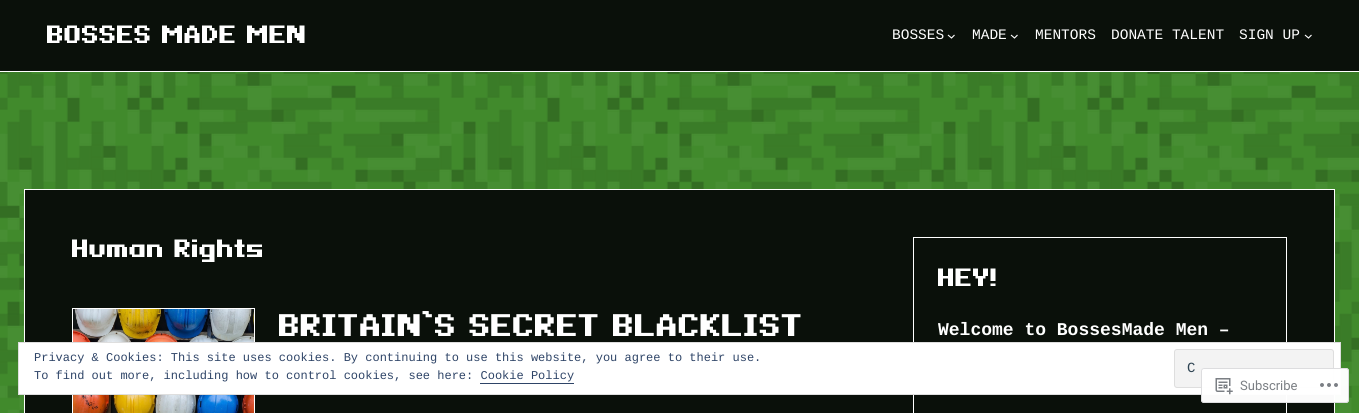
#include <cairo.h>
#include <math.h>
#include <stddef.h>

static cairo_t *ctx;

static void use_color(int r, int g, int b) {
    cairo_set_source_rgb(ctx, r / 255.0, g / 255.0, b / 255.0);
}

static void round_rect(double x, double y, double w, double h, double r) {
    cairo_new_sub_path(ctx);
    cairo_arc(ctx, x + w - r, y + h - r, r, 0, M_PI / 2);
    cairo_arc(ctx, x + r, y + h - r, r, M_PI / 2, M_PI);
    cairo_arc(ctx, x + r, y + r, r, M_PI, 1.5 * M_PI);
    cairo_arc(ctx, x + w - r, y + r, r, 1.5 * M_PI, 2 * M_PI);
    cairo_close_path(ctx);
}

static void picture(const char *path, double x, double y, double w, double h) {
    cairo_surface_t *image = cairo_image_surface_create_from_png(path);
    cairo_save(ctx);
    cairo_set_source_surface(ctx, image, x, y);
    cairo_rectangle(ctx, x, y, w, h);
    cairo_fill(ctx);
    cairo_restore(ctx);
    cairo_surface_destroy(image);
}

int main(void) {
    cairo_surface_t *surface = cairo_image_surface_create(CAIRO_FORMAT_RGB24, 1359, 413);
    ctx = cairo_create(surface);
    cairo_font_options_t *options = cairo_font_options_create();
    cairo_font_options_set_hint_metrics(options, CAIRO_HINT_METRICS_OFF);
    cairo_font_options_set_hint_style(options, CAIRO_HINT_STYLE_NONE);
    cairo_set_font_options(ctx, options);
    cairo_set_miter_limit(ctx, 4);
    use_color(10, 16, 10);
    cairo_paint(ctx);
    use_color(255, 255, 255);
    cairo_rectangle(ctx, 0, 71, 1359, 1);
    cairo_fill(ctx);
    cairo_select_font_face(ctx, "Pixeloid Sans", CAIRO_FONT_SLANT_NORMAL, CAIRO_FONT_WEIGHT_BOLD);
    cairo_set_font_size(ctx, 22.5);
    cairo_move_to(ctx, 47, 43);
    cairo_show_text(ctx, "BOSSES MADE MEN");
    cairo_select_font_face(ctx, "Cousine", CAIRO_FONT_SLANT_NORMAL, CAIRO_FONT_WEIGHT_NORMAL);
    cairo_set_font_size(ctx, 14.5);
    cairo_move_to(ctx, 892, 39);
    cairo_show_text(ctx, "BOSSES");
    cairo_new_path(ctx);
    cairo_move_to(ctx, 948, 35);
    cairo_line_to(ctx, 951.5, 38);
    cairo_line_to(ctx, 954.5, 35);
    cairo_set_line_width(ctx, 1.1);
    cairo_stroke(ctx);
    cairo_move_to(ctx, 972, 39);
    cairo_show_text(ctx, "MADE");
    cairo_new_path(ctx);
    cairo_move_to(ctx, 1011, 35);
    cairo_line_to(ctx, 1014.5, 38);
    cairo_line_to(ctx, 1017.5, 35);
    cairo_stroke(ctx);
    cairo_move_to(ctx, 1035, 39);
    cairo_show_text(ctx, "MENTORS");
    cairo_move_to(ctx, 1111, 39);
    cairo_show_text(ctx, "DONATE TALENT");
    cairo_move_to(ctx, 1239, 39);
    cairo_show_text(ctx, "SIGN UP");
    cairo_new_path(ctx);
    cairo_move_to(ctx, 1305, 35);
    cairo_line_to(ctx, 1308.5, 38);
    cairo_line_to(ctx, 1311.5, 35);
    cairo_stroke(ctx);
    use_color(65, 138, 44);
    cairo_rectangle(ctx, 0, 72, 1359, 341);
    cairo_fill(ctx);
    picture("img1.png", 0, 72, 1359, 341);
    use_color(10, 16, 10);
    cairo_rectangle(ctx, 24.5, 189.5, 1310, 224);
    cairo_fill_preserve(ctx);
    use_color(255, 255, 255);
    cairo_set_line_width(ctx, 1);
    cairo_stroke(ctx);
    cairo_select_font_face(ctx, "Pixeloid Sans", CAIRO_FONT_SLANT_NORMAL, CAIRO_FONT_WEIGHT_BOLD);
    cairo_set_font_size(ctx, 22.5);
    cairo_move_to(ctx, 72, 257);
    cairo_show_text(ctx, "Human Rights");
    cairo_rectangle(ctx, 72.5, 308.5, 182, 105);
    cairo_stroke(ctx);
    picture("img2.png", 73, 309, 181, 104);
    cairo_set_font_size(ctx, 28.1);
    cairo_move_to(ctx, 279, 336);
    cairo_show_text(ctx, "BRITAIN’S SECRET BLACKLIST");
    cairo_rectangle(ctx, 913.5, 237.5, 373, 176);
    cairo_stroke(ctx);
    cairo_set_font_size(ctx, 22.5);
    cairo_move_to(ctx, 938, 286);
    cairo_show_text(ctx, "HEY!");
    cairo_select_font_face(ctx, "Cousine", CAIRO_FONT_SLANT_NORMAL, CAIRO_FONT_WEIGHT_BOLD);
    cairo_set_font_size(ctx, 18);
    cairo_move_to(ctx, 938, 335);
    cairo_show_text(ctx, "Welcome to BossesMade Men –");
    cairo_rectangle(ctx, 18.5, 342.5, 1322, 52);
    cairo_fill_preserve(ctx);
    use_color(222, 222, 222);
    cairo_stroke(ctx);
    cairo_select_font_face(ctx, "Cousine", CAIRO_FONT_SLANT_NORMAL, CAIRO_FONT_WEIGHT_NORMAL);
    cairo_set_font_size(ctx, 12);
    use_color(46, 68, 103);
    cairo_move_to(ctx, 34, 361);
    cairo_show_text(ctx, "Privacy & Cookies: This site uses cookies. By continuing to use this website, you agree to their use.");
    use_color(243, 243, 243);
    round_rect(1174.5, 349.5, 159, 38, 2.5);
    cairo_fill_preserve(ctx);
    use_color(222, 222, 222);
    cairo_stroke(ctx);
    cairo_set_font_size(ctx, 14);
    use_color(46, 68, 83);
    cairo_move_to(ctx, 1187, 372);
    cairo_show_text(ctx, "C");
    cairo_set_font_size(ctx, 12);
    use_color(46, 68, 103);
    cairo_move_to(ctx, 34, 379);
    cairo_show_text(ctx, "To find out more, including how to control cookies, see here: Cookie Policy");
    cairo_rectangle(ctx, 480, 383, 94, 1);
    cairo_fill(ctx);
    cairo_set_source_rgba(ctx, 1, 1, 1, 0.98);
    round_rect(1201, 368, 148, 35, 3);
    cairo_fill(ctx);
    round_rect(1201.5, 368.5, 147, 34, 2.5);
    cairo_set_source_rgba(ctx, 0.863, 0.863, 0.871, 0.98);
    cairo_stroke(ctx);
    picture("img3.png", 1215, 378, 18, 17);
    cairo_select_font_face(ctx, "Roboto", CAIRO_FONT_SLANT_NORMAL, CAIRO_FONT_WEIGHT_NORMAL);
    cairo_set_font_size(ctx, 13);
    use_color(123, 127, 132);
    cairo_move_to(ctx, 1240, 390);
    cairo_show_text(ctx, "Subscribe");
    picture("img4.png", 1320, 383, 18, 4);
    cairo_surface_write_to_png(surface, "result.png");
    cairo_font_options_destroy(options);
    cairo_destroy(ctx);
    cairo_surface_destroy(surface);
    return 0;
}
